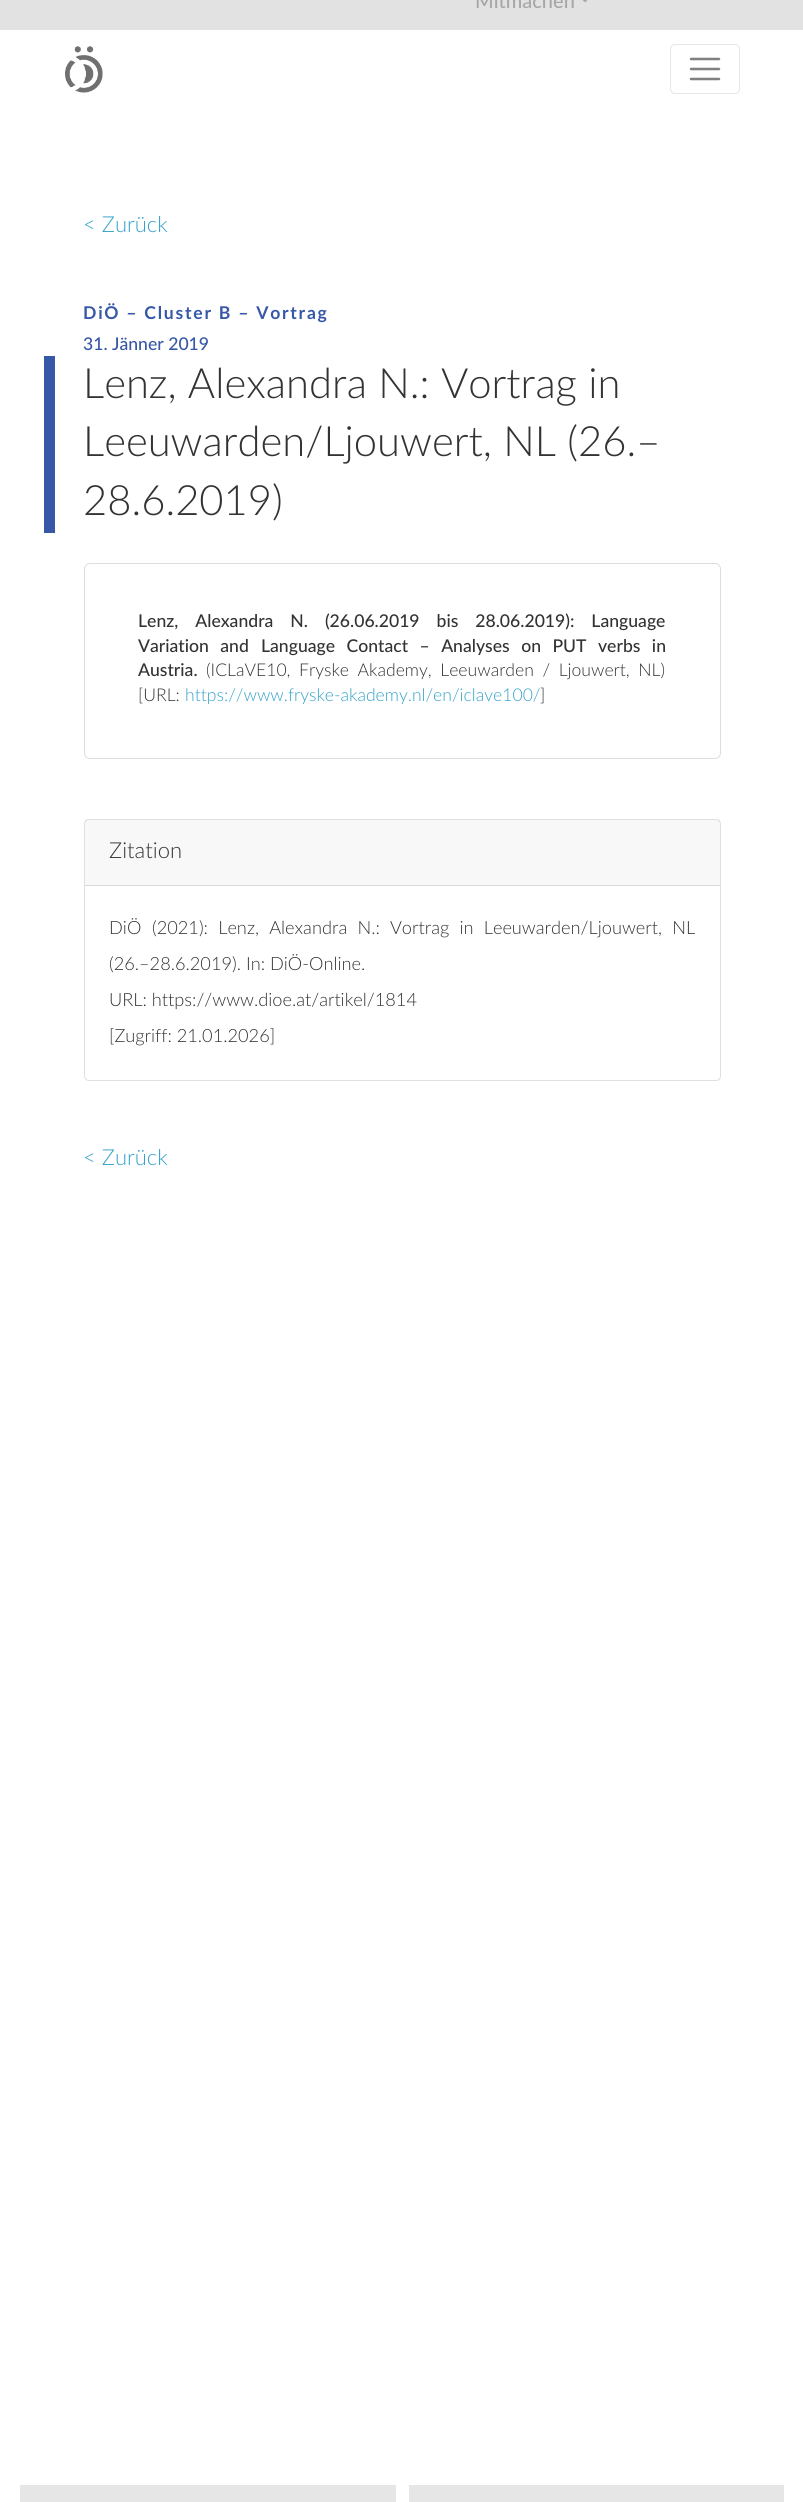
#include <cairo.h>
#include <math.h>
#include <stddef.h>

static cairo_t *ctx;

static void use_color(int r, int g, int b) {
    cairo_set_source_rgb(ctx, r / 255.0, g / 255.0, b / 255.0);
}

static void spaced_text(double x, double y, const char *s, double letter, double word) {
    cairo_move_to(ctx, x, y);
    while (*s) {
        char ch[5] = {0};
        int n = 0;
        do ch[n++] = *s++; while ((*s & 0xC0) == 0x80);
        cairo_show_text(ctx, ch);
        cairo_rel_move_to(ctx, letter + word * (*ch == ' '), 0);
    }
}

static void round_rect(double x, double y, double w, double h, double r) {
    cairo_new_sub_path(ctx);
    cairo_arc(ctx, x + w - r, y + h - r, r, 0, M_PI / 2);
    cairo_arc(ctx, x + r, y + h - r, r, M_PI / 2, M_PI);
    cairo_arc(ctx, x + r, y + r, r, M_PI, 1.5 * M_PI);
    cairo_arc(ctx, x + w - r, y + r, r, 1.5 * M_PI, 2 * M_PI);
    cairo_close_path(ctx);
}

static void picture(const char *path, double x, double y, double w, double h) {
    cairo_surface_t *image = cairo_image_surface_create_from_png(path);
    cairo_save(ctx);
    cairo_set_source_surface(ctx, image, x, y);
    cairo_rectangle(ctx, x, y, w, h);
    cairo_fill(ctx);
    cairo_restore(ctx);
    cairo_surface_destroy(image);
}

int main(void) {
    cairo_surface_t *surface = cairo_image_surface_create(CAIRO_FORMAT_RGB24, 803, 2502);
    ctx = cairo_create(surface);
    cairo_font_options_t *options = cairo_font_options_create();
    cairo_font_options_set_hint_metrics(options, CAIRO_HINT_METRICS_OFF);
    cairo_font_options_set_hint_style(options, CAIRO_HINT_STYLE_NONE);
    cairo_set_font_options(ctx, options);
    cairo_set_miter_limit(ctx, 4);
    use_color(255, 255, 255);
    cairo_paint(ctx);
    use_color(226, 226, 226);
    cairo_rectangle(ctx, 0, 0, 803, 30);
    cairo_fill(ctx);
    cairo_select_font_face(ctx, "Lato Medium", CAIRO_FONT_SLANT_NORMAL, CAIRO_FONT_WEIGHT_NORMAL);
    cairo_set_font_size(ctx, 20);
    use_color(167, 167, 167);
    cairo_move_to(ctx, 475, 8);
    cairo_show_text(ctx, "Mitmachen");
    cairo_new_path(ctx);
    cairo_move_to(ctx, 580, -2.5);
    cairo_line_to(ctx, 590, -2.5);
    cairo_line_to(ctx, 585, 2.5);
    cairo_close_path(ctx);
    cairo_fill(ctx);
    picture("img1.png", 65, 46, 38, 47);
    round_rect(670.5, 44.5, 69, 49, 4.5);
    use_color(230, 230, 230);
    cairo_set_line_width(ctx, 1);
    cairo_stroke(ctx);
    cairo_new_path(ctx);
    cairo_move_to(ctx, 691, 59);
    cairo_line_to(ctx, 719, 59);
    cairo_move_to(ctx, 691, 69);
    cairo_line_to(ctx, 719, 69);
    cairo_move_to(ctx, 691, 79);
    cairo_line_to(ctx, 719, 79);
    use_color(128, 128, 128);
    cairo_set_line_width(ctx, 2.5);
    cairo_set_line_cap(ctx, CAIRO_LINE_CAP_ROUND);
    cairo_stroke(ctx);
    cairo_select_font_face(ctx, "Lato Light", CAIRO_FONT_SLANT_NORMAL, CAIRO_FONT_WEIGHT_NORMAL);
    cairo_set_font_size(ctx, 22);
    use_color(52, 162, 203);
    cairo_move_to(ctx, 83, 232);
    cairo_show_text(ctx, "< Zurück");
    cairo_select_font_face(ctx, "Lato", CAIRO_FONT_SLANT_NORMAL, CAIRO_FONT_WEIGHT_BOLD);
    cairo_set_font_size(ctx, 17.6);
    use_color(55, 87, 167);
    spaced_text(83, 319, "DiÖ – Cluster B – Vortrag", 1.75, 0);
    cairo_select_font_face(ctx, "Lato Medium", CAIRO_FONT_SLANT_NORMAL, CAIRO_FONT_WEIGHT_NORMAL);
    cairo_move_to(ctx, 83, 350);
    cairo_show_text(ctx, "31. Jänner 2019");
    cairo_rectangle(ctx, 44, 356, 11, 177);
    cairo_fill(ctx);
    cairo_select_font_face(ctx, "Lato Light", CAIRO_FONT_SLANT_NORMAL, CAIRO_FONT_WEIGHT_NORMAL);
    cairo_set_font_size(ctx, 41.75);
    use_color(51, 51, 51);
    cairo_move_to(ctx, 83, 398);
    cairo_show_text(ctx, "Lenz, Alexandra N.: Vortrag in");
    cairo_move_to(ctx, 83, 456);
    cairo_show_text(ctx, "Leeuwarden/Ljouwert, NL (26.–");
    cairo_move_to(ctx, 83, 515);
    cairo_show_text(ctx, "28.6.2019)");
    round_rect(84.5, 563.5, 636, 195, 5.5);
    use_color(221, 221, 221);
    cairo_set_line_width(ctx, 1);
    cairo_set_line_cap(ctx, CAIRO_LINE_CAP_BUTT);
    cairo_stroke(ctx);
    cairo_select_font_face(ctx, "Lato Medium", CAIRO_FONT_SLANT_NORMAL, CAIRO_FONT_WEIGHT_NORMAL);
    cairo_set_font_size(ctx, 17.6);
    use_color(51, 51, 51);
    spaced_text(138, 627, "Lenz, Alexandra N. (26.06.2019 bis 28.06.2019): Language", 0, 12.5);
    spaced_text(138, 652, "Variation and", 0, 7);
    spaced_text(261, 652, "Language Contact – Analyses on PUT verbs in", 0, 7);
    cairo_move_to(ctx, 138, 676);
    cairo_show_text(ctx, "Austria.");
    cairo_select_font_face(ctx, "Lato Light", CAIRO_FONT_SLANT_NORMAL, CAIRO_FONT_WEIGHT_NORMAL);
    spaced_text(206, 676, "(ICLaVE10, Fryske Akademy, Leeuwarden / Ljouwert, NL)", 0, 3.75);
    cairo_move_to(ctx, 138, 701);
    cairo_show_text(ctx, "[URL:");
    use_color(52, 162, 203);
    cairo_move_to(ctx, 185, 701);
    cairo_show_text(ctx, "https://www.fryske-akademy.nl/en/iclave100/");
    use_color(51, 51, 51);
    cairo_move_to(ctx, 540, 701);
    cairo_show_text(ctx, "]");
    round_rect(84.5, 819.5, 636, 261, 4.5);
    use_color(223, 223, 223);
    cairo_stroke(ctx);
    cairo_set_source_rgba(ctx, 0, 0, 0, 0.03);
    cairo_rectangle(ctx, 85, 820, 635, 65);
    cairo_fill(ctx);
    use_color(216, 216, 216);
    cairo_rectangle(ctx, 85, 885, 635, 1);
    cairo_fill(ctx);
    cairo_set_font_size(ctx, 22);
    use_color(51, 51, 51);
    cairo_move_to(ctx, 109, 858);
    cairo_show_text(ctx, "Zitation");
    cairo_set_font_size(ctx, 18.2);
    cairo_move_to(ctx, 109, 934);
    cairo_show_text(ctx, "DiÖ");
    spaced_text(152, 934, "(2021): Lenz, Alexandra N.: Vortrag in Leeuwarden/Ljouwert, NL", 0, 5.25);
    cairo_move_to(ctx, 109, 970);
    cairo_show_text(ctx, "(26.–28.6.2019). In: DiÖ-Online.");
    cairo_move_to(ctx, 109, 1006);
    cairo_show_text(ctx, "URL: https://www.dioe.at/artikel/1814");
    cairo_move_to(ctx, 109, 1042);
    cairo_show_text(ctx, "[Zugriff: 21.01.2026]");
    cairo_set_font_size(ctx, 22);
    use_color(52, 162, 203);
    cairo_move_to(ctx, 83, 1165);
    cairo_show_text(ctx, "< Zurück");
    use_color(230, 230, 230);
    cairo_rectangle(ctx, 20, 2485, 376, 17);
    cairo_fill(ctx);
    cairo_rectangle(ctx, 409, 2485, 375, 17);
    cairo_fill(ctx);
    cairo_surface_write_to_png(surface, "result.png");
    cairo_font_options_destroy(options);
    cairo_destroy(ctx);
    cairo_surface_destroy(surface);
    return 0;
}
